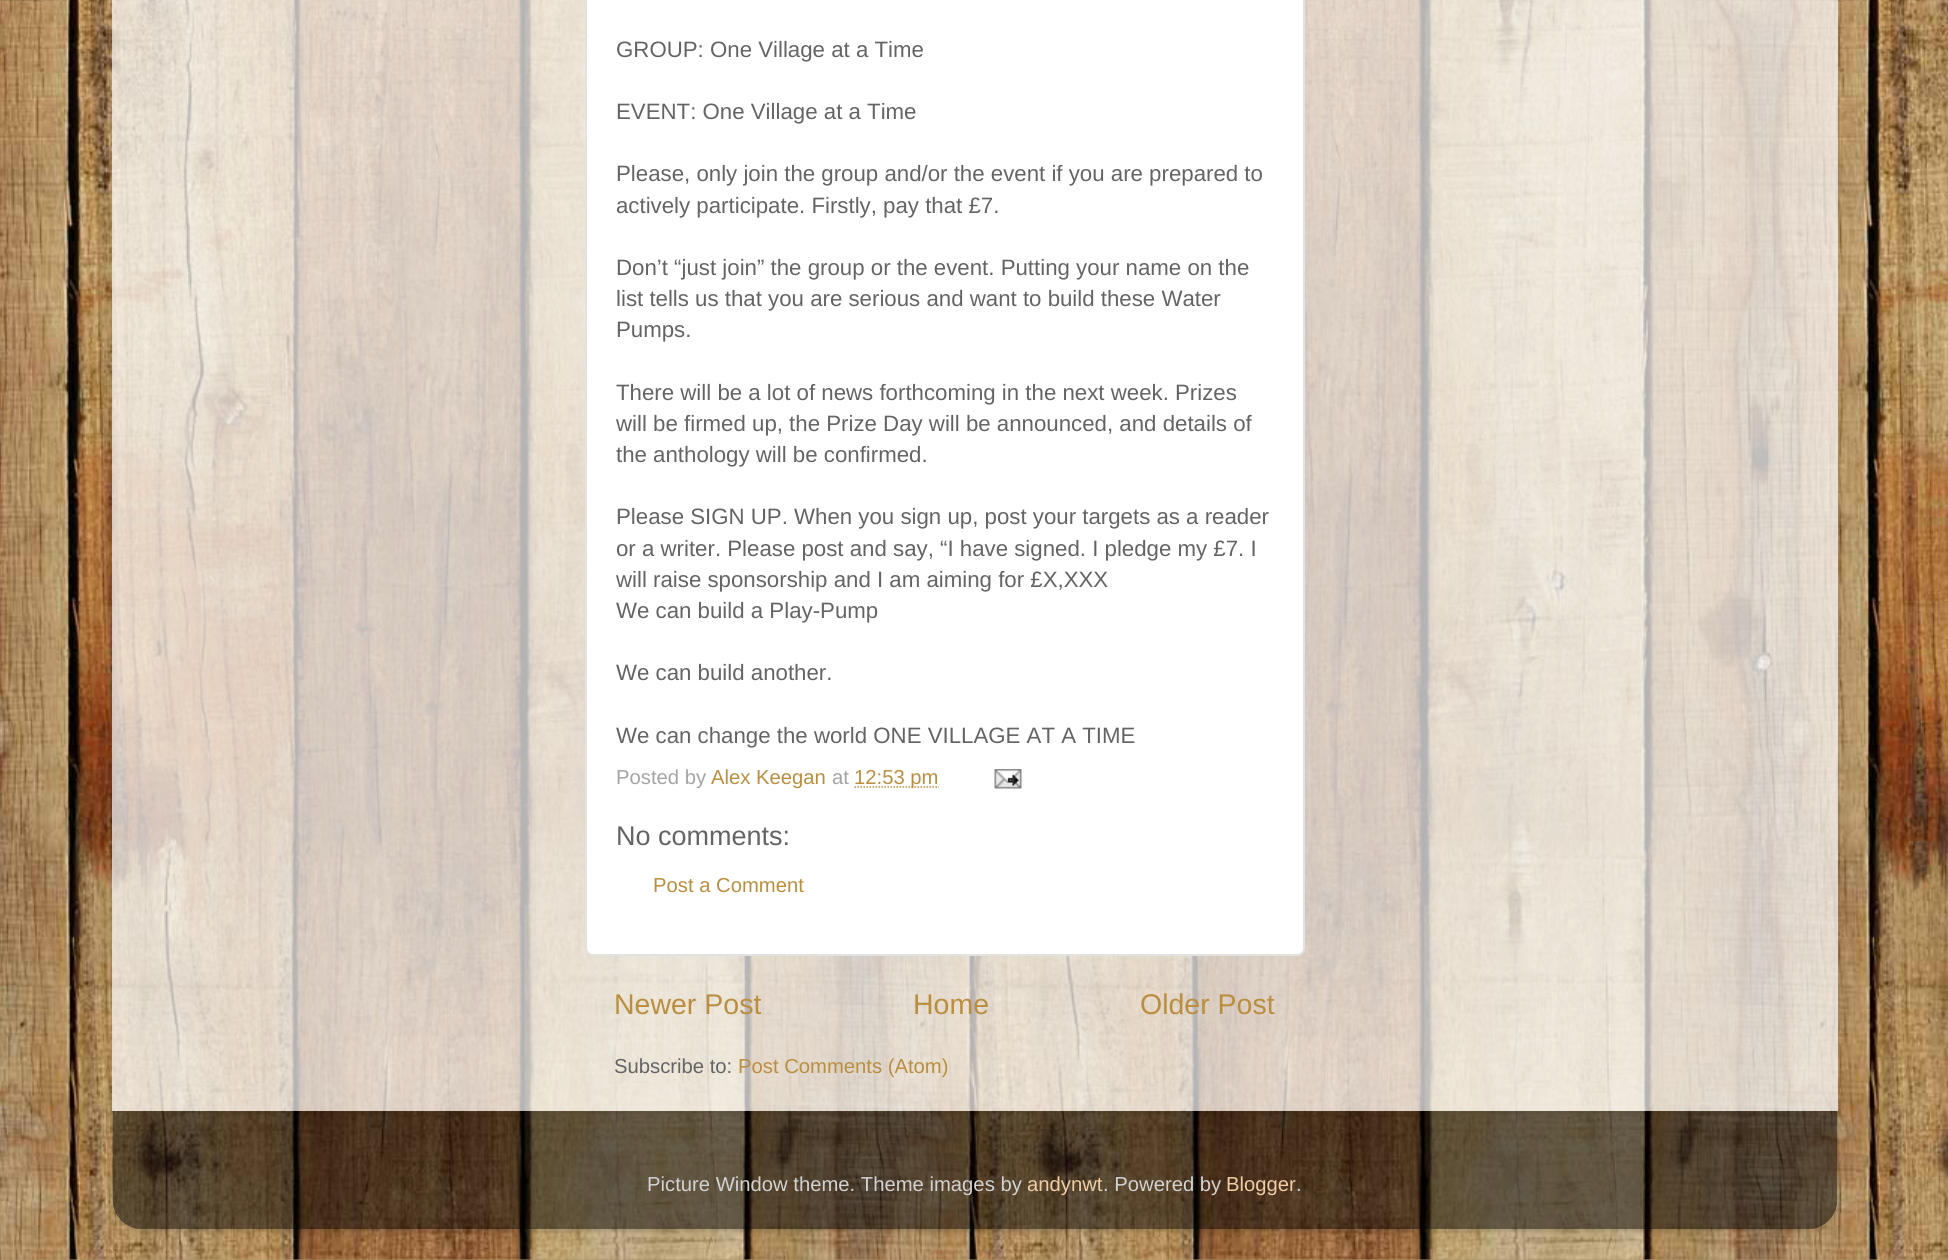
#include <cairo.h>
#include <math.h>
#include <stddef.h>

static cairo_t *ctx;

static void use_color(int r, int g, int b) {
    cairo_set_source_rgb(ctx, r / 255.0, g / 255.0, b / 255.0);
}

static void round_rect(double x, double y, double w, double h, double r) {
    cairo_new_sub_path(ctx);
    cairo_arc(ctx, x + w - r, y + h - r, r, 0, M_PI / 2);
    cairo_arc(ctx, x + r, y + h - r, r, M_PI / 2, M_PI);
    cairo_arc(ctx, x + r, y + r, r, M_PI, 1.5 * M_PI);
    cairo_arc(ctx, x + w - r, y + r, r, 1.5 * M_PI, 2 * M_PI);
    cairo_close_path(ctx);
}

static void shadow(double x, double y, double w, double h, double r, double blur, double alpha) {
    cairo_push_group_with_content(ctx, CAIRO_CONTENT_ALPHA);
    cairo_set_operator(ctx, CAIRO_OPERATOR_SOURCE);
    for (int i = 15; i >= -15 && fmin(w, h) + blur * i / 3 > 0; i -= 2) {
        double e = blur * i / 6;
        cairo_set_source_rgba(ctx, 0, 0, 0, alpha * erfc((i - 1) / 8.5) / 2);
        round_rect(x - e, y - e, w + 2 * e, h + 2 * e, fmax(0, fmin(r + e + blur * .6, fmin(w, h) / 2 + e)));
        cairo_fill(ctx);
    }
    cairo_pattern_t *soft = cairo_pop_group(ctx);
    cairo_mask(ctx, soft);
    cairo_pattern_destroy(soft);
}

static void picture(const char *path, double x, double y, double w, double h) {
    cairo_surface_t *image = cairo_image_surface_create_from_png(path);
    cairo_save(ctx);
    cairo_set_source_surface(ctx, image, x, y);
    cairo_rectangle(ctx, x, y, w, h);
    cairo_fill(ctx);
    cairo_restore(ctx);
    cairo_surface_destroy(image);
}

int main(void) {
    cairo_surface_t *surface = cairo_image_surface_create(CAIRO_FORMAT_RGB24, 1948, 1260);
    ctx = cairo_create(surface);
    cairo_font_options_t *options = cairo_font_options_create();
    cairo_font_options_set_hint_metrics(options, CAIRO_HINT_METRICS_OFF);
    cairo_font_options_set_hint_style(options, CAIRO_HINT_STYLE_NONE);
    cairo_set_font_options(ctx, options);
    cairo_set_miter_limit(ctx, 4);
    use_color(173, 150, 108);
    cairo_paint(ctx);
    picture("img1.png", 0, 0, 1948, 1260);
    cairo_save(ctx);
    cairo_set_fill_rule(ctx, CAIRO_FILL_RULE_EVEN_ODD);
    cairo_new_path(ctx);
    cairo_move_to(ctx, 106, 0);
    cairo_line_to(ctx, 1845, 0);
    cairo_line_to(ctx, 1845, 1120);
    cairo_line_to(ctx, 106, 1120);
    cairo_close_path(ctx);
    cairo_move_to(ctx, 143, -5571);
    cairo_line_to(ctx, 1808, -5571);
    cairo_curve_to(ctx, 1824.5, -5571, 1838, -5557.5, 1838, -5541);
    cairo_line_to(ctx, 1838, 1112);
    cairo_line_to(ctx, 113, 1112);
    cairo_line_to(ctx, 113, -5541);
    cairo_curve_to(ctx, 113, -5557.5, 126.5, -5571, 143, -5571);
    cairo_close_path(ctx);
    cairo_clip(ctx);
    use_color(0, 0, 0);
    shadow(113, -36, 1725, 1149, 30, 2, 0.15);
    cairo_restore(ctx);
    cairo_set_source_rgba(ctx, 1, 1, 1, 0.7);
    cairo_rectangle(ctx, 112, 0, 1726, 1111);
    cairo_fill(ctx);
    use_color(255, 255, 255);
    round_rect(586, -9, 718, 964, 7);
    cairo_fill_preserve(ctx);
    use_color(226, 226, 226);
    cairo_stroke(ctx);
    cairo_select_font_face(ctx, "Liberation Sans", CAIRO_FONT_SLANT_NORMAL, CAIRO_FONT_WEIGHT_NORMAL);
    cairo_set_font_size(ctx, 22.25);
    use_color(100, 100, 100);
    cairo_move_to(ctx, 616, 57);
    cairo_show_text(ctx, "GROUP: One Village at a Time");
    cairo_move_to(ctx, 616, 119);
    cairo_show_text(ctx, "EVENT: One Village at a Time");
    cairo_move_to(ctx, 616, 181);
    cairo_show_text(ctx, "Please, only join the group and/or the event if you are prepared to");
    cairo_move_to(ctx, 616, 213);
    cairo_show_text(ctx, "actively participate. Firstly, pay that £7.");
    cairo_move_to(ctx, 616, 275);
    cairo_show_text(ctx, "Don’t “just join” the group or the event. Putting your name on the");
    cairo_move_to(ctx, 616, 306);
    cairo_show_text(ctx, "list tells us that you are serious and want to build these Water");
    cairo_move_to(ctx, 616, 337);
    cairo_show_text(ctx, "Pumps.");
    cairo_move_to(ctx, 616, 400);
    cairo_show_text(ctx, "There will be a lot of news forthcoming in the next week. Prizes");
    cairo_move_to(ctx, 616, 431);
    cairo_show_text(ctx, "will be firmed up, the Prize Day will be announced, and details of");
    cairo_move_to(ctx, 616, 462);
    cairo_show_text(ctx, "the anthology will be confirmed.");
    cairo_move_to(ctx, 616, 524);
    cairo_show_text(ctx, "Please SIGN UP. When you sign up, post your targets as a reader");
    cairo_move_to(ctx, 616, 556);
    cairo_show_text(ctx, "or a writer. Please post and say, “I have signed. I pledge my £7. I");
    cairo_move_to(ctx, 616, 587);
    cairo_show_text(ctx, "will raise sponsorship and I am aiming for £X,XXX");
    cairo_move_to(ctx, 616, 618);
    cairo_show_text(ctx, "We can build a Play-Pump");
    cairo_move_to(ctx, 616, 680);
    cairo_show_text(ctx, "We can build another.");
    cairo_move_to(ctx, 616, 743);
    cairo_show_text(ctx, "We can change the world ONE VILLAGE AT A TIME");
    cairo_set_font_size(ctx, 20.25);
    use_color(164, 164, 164);
    cairo_move_to(ctx, 616, 784);
    cairo_show_text(ctx, "Posted by");
    use_color(186, 142, 62);
    cairo_move_to(ctx, 711, 784);
    cairo_show_text(ctx, "Alex Keegan");
    use_color(164, 164, 164);
    cairo_move_to(ctx, 832, 784);
    cairo_show_text(ctx, "at");
    cairo_new_path(ctx);
    cairo_move_to(ctx, 854.5, 787);
    cairo_line_to(ctx, 939, 787);
    use_color(186, 142, 62);
    cairo_set_line_width(ctx, 1.5);
    cairo_set_dash(ctx, (double[]){1.5, 1.5}, 2, 0);
    cairo_stroke(ctx);
    cairo_move_to(ctx, 854, 784);
    cairo_show_text(ctx, "12:53 pm");
    picture("img2.png", 994, 769, 28, 20);
    cairo_set_font_size(ctx, 27);
    use_color(100, 100, 100);
    cairo_move_to(ctx, 616, 845);
    cairo_show_text(ctx, "No comments:");
    cairo_set_font_size(ctx, 20.25);
    use_color(186, 142, 62);
    cairo_move_to(ctx, 653, 892);
    cairo_show_text(ctx, "Post a Comment");
    cairo_set_font_size(ctx, 28.5);
    cairo_move_to(ctx, 614, 1014);
    cairo_show_text(ctx, "Newer Post");
    cairo_move_to(ctx, 913, 1014);
    cairo_show_text(ctx, "Home");
    cairo_move_to(ctx, 1140, 1014);
    cairo_show_text(ctx, "Older Post");
    cairo_set_font_size(ctx, 20.25);
    use_color(100, 100, 100);
    cairo_move_to(ctx, 614, 1073);
    cairo_show_text(ctx, "Subscribe to:");
    use_color(186, 142, 62);
    cairo_move_to(ctx, 738, 1073);
    cairo_show_text(ctx, "Post Comments (Atom)");
    cairo_save(ctx);
    cairo_set_fill_rule(ctx, CAIRO_FILL_RULE_EVEN_ODD);
    cairo_new_path(ctx);
    cairo_move_to(ctx, 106, 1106);
    cairo_line_to(ctx, 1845, 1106);
    cairo_line_to(ctx, 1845, 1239);
    cairo_line_to(ctx, 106, 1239);
    cairo_close_path(ctx);
    cairo_move_to(ctx, 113, 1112);
    cairo_line_to(ctx, 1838, 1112);
    cairo_line_to(ctx, 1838, 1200);
    cairo_curve_to(ctx, 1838, 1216.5, 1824.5, 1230, 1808, 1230);
    cairo_line_to(ctx, 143, 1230);
    cairo_curve_to(ctx, 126.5, 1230, 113, 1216.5, 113, 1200);
    cairo_close_path(ctx);
    cairo_clip(ctx);
    use_color(0, 0, 0);
    shadow(113, 1113, 1725, 119, 30, 2, 0.15);
    cairo_restore(ctx);
    picture("img3.png", 112, 1111, 1726, 119);
    use_color(210, 210, 210);
    cairo_move_to(ctx, 647, 1191);
    cairo_show_text(ctx, "Picture Window theme. Theme images by");
    use_color(240, 206, 165);
    cairo_move_to(ctx, 1027, 1191);
    cairo_show_text(ctx, "andynwt");
    use_color(210, 210, 210);
    cairo_move_to(ctx, 1103, 1191);
    cairo_show_text(ctx, ". Powered by");
    use_color(240, 206, 165);
    cairo_move_to(ctx, 1226, 1191);
    cairo_show_text(ctx, "Blogger");
    use_color(210, 210, 210);
    cairo_move_to(ctx, 1296, 1191);
    cairo_show_text(ctx, ".");
    cairo_surface_write_to_png(surface, "result.png");
    cairo_font_options_destroy(options);
    cairo_destroy(ctx);
    cairo_surface_destroy(surface);
    return 0;
}
